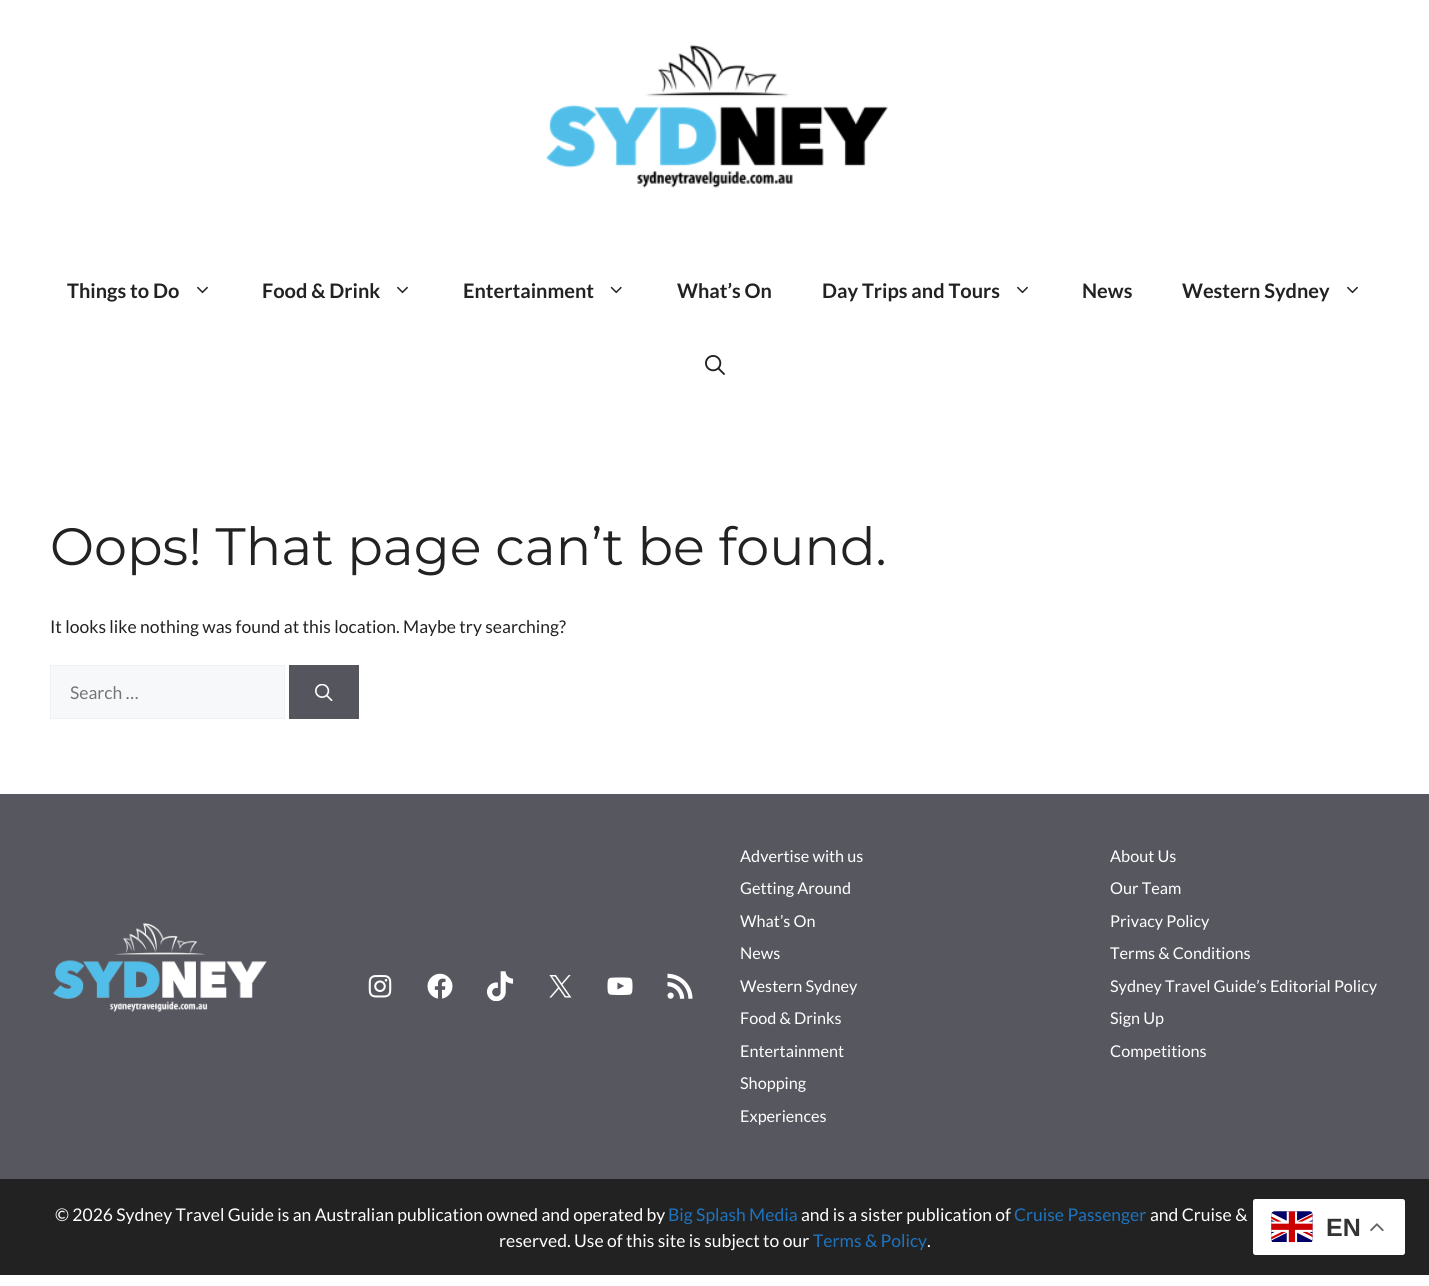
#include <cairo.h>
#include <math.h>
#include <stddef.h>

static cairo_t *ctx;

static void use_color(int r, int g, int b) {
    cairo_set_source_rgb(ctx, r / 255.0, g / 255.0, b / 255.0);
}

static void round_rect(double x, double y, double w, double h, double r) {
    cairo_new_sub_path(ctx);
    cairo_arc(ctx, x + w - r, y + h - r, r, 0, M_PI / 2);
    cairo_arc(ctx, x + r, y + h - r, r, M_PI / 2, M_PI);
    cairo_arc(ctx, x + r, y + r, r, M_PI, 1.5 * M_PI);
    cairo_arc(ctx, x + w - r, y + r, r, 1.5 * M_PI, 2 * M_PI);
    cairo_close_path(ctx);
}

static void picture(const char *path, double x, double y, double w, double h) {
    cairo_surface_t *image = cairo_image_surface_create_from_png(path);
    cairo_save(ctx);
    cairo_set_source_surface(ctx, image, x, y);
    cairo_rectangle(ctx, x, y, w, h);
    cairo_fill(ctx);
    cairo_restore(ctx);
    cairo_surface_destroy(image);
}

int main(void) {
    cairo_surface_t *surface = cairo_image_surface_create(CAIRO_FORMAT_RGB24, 1429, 1286);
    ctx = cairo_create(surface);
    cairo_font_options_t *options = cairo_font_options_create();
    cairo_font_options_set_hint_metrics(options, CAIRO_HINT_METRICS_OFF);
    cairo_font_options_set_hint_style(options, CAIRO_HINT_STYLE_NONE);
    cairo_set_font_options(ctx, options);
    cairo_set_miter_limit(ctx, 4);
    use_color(255, 255, 255);
    cairo_paint(ctx);
    picture("img1.png", 546, 44, 342, 144);
    cairo_select_font_face(ctx, "Lato", CAIRO_FONT_SLANT_NORMAL, CAIRO_FONT_WEIGHT_BOLD);
    cairo_set_font_size(ctx, 20);
    use_color(34, 34, 34);
    cairo_move_to(ctx, 67, 298);
    cairo_show_text(ctx, "Things to Do");
    picture("img2.png", 197, 286, 11, 8);
    cairo_move_to(ctx, 262, 298);
    cairo_show_text(ctx, "Food & Drink");
    picture("img2.png", 397, 286, 11, 8);
    cairo_move_to(ctx, 463, 298);
    cairo_show_text(ctx, "Entertainment");
    picture("img3.png", 610, 286, 12, 8);
    cairo_move_to(ctx, 677, 298);
    cairo_show_text(ctx, "What’s On");
    cairo_move_to(ctx, 822, 298);
    cairo_show_text(ctx, "Day Trips and Tours");
    picture("img2.png", 1017, 286, 11, 8);
    cairo_move_to(ctx, 1082, 298);
    cairo_show_text(ctx, "News");
    cairo_move_to(ctx, 1182, 298);
    cairo_show_text(ctx, "Western Sydney");
    picture("img2.png", 1347, 286, 11, 8);
    picture("img4.png", 705, 355, 20, 20);
    cairo_select_font_face(ctx, "Montserrat Thin", CAIRO_FONT_SLANT_NORMAL, CAIRO_FONT_WEIGHT_NORMAL);
    cairo_set_font_size(ctx, 52.5);
    cairo_move_to(ctx, 50, 565);
    cairo_show_text(ctx, "Oops! That page can’t be found.");
    cairo_select_font_face(ctx, "Lato", CAIRO_FONT_SLANT_NORMAL, CAIRO_FONT_WEIGHT_NORMAL);
    cairo_set_font_size(ctx, 17.5);
    cairo_move_to(ctx, 50, 633);
    cairo_show_text(ctx, "It looks like nothing was found at this location. Maybe try searching?");
    use_color(247, 248, 249);
    cairo_rectangle(ctx, 50.5, 665.5, 234, 53);
    cairo_fill_preserve(ctx);
    use_color(240, 240, 240);
    cairo_set_line_width(ctx, 1);
    cairo_stroke(ctx);
    use_color(117, 117, 117);
    cairo_move_to(ctx, 70, 699);
    cairo_show_text(ctx, "Search …");
    use_color(85, 85, 94);
    cairo_rectangle(ctx, 289, 665, 70, 54);
    cairo_fill(ctx);
    picture("img5.png", 315, 684, 18, 17);
    use_color(87, 87, 96);
    cairo_rectangle(ctx, 0, 794, 1429, 385);
    cairo_fill(ctx);
    picture("img6.png", 53, 923, 214, 89);
    picture("img7.png", 368, 975, 24, 23);
    picture("img8.png", 427, 973, 26, 26);
    picture("img9.png", 487, 971, 27, 30);
    picture("img10.png", 549, 975, 23, 23);
    picture("img11.png", 607, 977, 26, 19);
    picture("img12.png", 667, 973, 26, 26);
    cairo_set_font_size(ctx, 16.25);
    use_color(255, 255, 255);
    cairo_move_to(ctx, 740, 862);
    cairo_show_text(ctx, "Advertise with us");
    cairo_move_to(ctx, 740, 894);
    cairo_show_text(ctx, "Getting Around");
    cairo_move_to(ctx, 740, 927);
    cairo_show_text(ctx, "What’s On");
    cairo_move_to(ctx, 740, 959);
    cairo_show_text(ctx, "News");
    cairo_move_to(ctx, 740, 992);
    cairo_show_text(ctx, "Western Sydney");
    cairo_move_to(ctx, 740, 1024);
    cairo_show_text(ctx, "Food & Drinks");
    cairo_move_to(ctx, 740, 1057);
    cairo_show_text(ctx, "Entertainment");
    cairo_move_to(ctx, 740, 1089);
    cairo_show_text(ctx, "Shopping");
    cairo_move_to(ctx, 740, 1122);
    cairo_show_text(ctx, "Experiences");
    cairo_move_to(ctx, 1110, 862);
    cairo_show_text(ctx, "About Us");
    cairo_move_to(ctx, 1110, 894);
    cairo_show_text(ctx, "Our Team");
    cairo_move_to(ctx, 1110, 927);
    cairo_show_text(ctx, "Privacy Policy");
    cairo_move_to(ctx, 1110, 959);
    cairo_show_text(ctx, "Terms & Conditions");
    cairo_move_to(ctx, 1110, 992);
    cairo_show_text(ctx, "Sydney Travel Guide’s Editorial Policy");
    cairo_move_to(ctx, 1110, 1024);
    cairo_show_text(ctx, "Sign Up");
    cairo_move_to(ctx, 1110, 1057);
    cairo_show_text(ctx, "Competitions");
    use_color(34, 34, 34);
    cairo_rectangle(ctx, 0, 1179, 1429, 96);
    cairo_fill(ctx);
    cairo_set_font_size(ctx, 17.5);
    use_color(255, 255, 255);
    cairo_move_to(ctx, 55, 1221);
    cairo_show_text(ctx, "© 2026 Sydney Travel Guide is an Australian publication owned and operated by");
    use_color(30, 115, 190);
    cairo_move_to(ctx, 668, 1221);
    cairo_show_text(ctx, "Big Splash Media");
    use_color(255, 255, 255);
    cairo_move_to(ctx, 801, 1221);
    cairo_show_text(ctx, "and is a sister publication of");
    use_color(30, 115, 190);
    cairo_move_to(ctx, 1014, 1221);
    cairo_show_text(ctx, "Cruise Passenger");
    use_color(255, 255, 255);
    cairo_move_to(ctx, 1150, 1221);
    cairo_show_text(ctx, "and Cruise &");
    cairo_move_to(ctx, 499, 1247);
    cairo_show_text(ctx, "reserved. Use of this site is subject to our");
    use_color(30, 115, 190);
    cairo_move_to(ctx, 813, 1247);
    cairo_show_text(ctx, "Terms & Policy");
    use_color(255, 255, 255);
    cairo_move_to(ctx, 927, 1247);
    cairo_show_text(ctx, ".");
    round_rect(1253, 1199, 152, 56, 2.5);
    cairo_fill(ctx);
    picture("img13.png", 1271, 1211, 42, 32);
    cairo_select_font_face(ctx, "Liberation Sans", CAIRO_FONT_SLANT_NORMAL, CAIRO_FONT_WEIGHT_BOLD);
    cairo_set_font_size(ctx, 25);
    use_color(51, 51, 51);
    cairo_move_to(ctx, 1326, 1236);
    cairo_show_text(ctx, "EN");
    picture("img14.png", 1370, 1223, 14, 9);
    cairo_surface_write_to_png(surface, "result.png");
    cairo_font_options_destroy(options);
    cairo_destroy(ctx);
    cairo_surface_destroy(surface);
    return 0;
}
